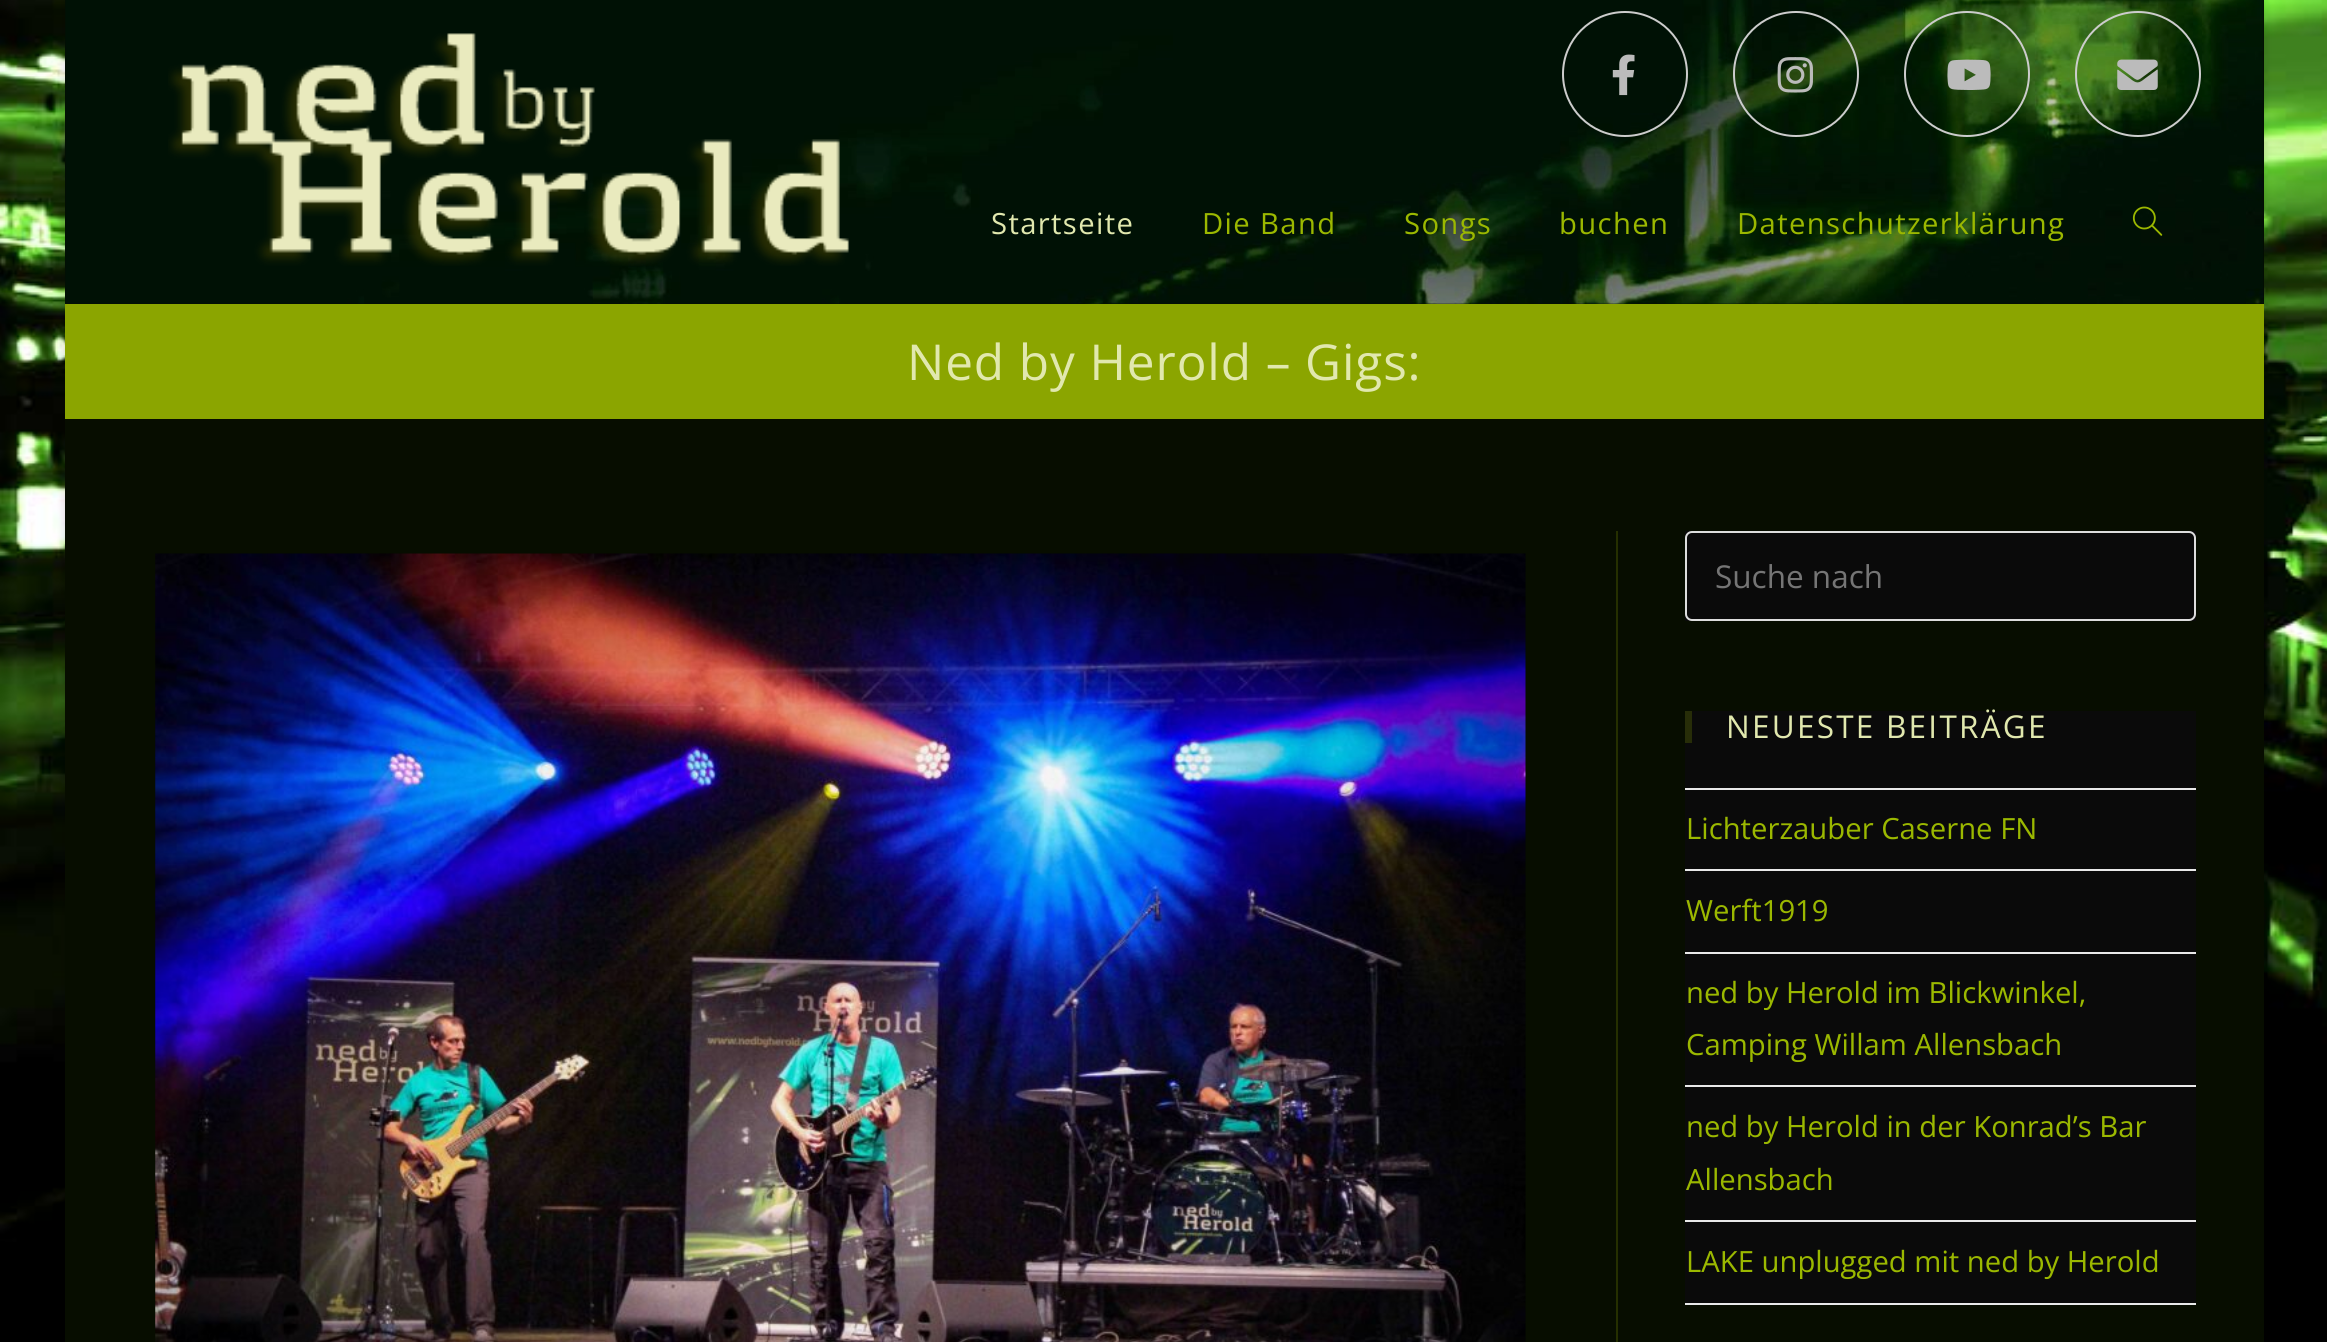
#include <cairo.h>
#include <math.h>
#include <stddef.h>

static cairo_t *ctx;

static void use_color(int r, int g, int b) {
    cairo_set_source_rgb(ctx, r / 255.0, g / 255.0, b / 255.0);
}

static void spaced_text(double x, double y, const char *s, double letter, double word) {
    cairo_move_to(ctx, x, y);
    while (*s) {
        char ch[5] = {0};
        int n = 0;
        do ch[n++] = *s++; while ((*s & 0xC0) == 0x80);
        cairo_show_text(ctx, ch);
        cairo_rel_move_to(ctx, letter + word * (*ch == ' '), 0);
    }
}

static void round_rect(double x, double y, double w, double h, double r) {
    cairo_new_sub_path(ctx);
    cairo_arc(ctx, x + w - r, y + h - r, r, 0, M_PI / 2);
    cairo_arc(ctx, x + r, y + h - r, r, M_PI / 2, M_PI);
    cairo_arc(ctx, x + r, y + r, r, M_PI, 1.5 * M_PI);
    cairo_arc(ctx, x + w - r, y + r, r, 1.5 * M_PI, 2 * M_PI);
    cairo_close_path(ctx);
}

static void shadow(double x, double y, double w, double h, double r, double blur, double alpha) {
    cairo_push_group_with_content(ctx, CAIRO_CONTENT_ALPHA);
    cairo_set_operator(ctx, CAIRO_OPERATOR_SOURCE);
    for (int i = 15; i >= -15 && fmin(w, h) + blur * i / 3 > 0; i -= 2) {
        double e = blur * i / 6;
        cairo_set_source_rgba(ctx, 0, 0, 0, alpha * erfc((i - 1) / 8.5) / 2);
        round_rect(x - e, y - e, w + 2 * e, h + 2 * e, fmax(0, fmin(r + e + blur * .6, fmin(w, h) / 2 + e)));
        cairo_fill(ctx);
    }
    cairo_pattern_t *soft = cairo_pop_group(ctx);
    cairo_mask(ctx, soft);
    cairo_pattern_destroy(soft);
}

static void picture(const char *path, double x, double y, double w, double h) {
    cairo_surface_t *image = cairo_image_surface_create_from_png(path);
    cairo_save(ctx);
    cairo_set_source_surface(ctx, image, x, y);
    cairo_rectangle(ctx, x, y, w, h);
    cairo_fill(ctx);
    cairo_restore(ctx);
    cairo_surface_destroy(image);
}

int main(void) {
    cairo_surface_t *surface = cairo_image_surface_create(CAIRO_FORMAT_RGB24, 2327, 1342);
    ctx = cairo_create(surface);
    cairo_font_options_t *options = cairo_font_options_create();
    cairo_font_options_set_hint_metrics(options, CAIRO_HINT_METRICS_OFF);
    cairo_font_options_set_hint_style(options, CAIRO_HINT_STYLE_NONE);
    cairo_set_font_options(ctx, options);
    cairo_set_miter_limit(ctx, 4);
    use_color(255, 255, 255);
    cairo_paint(ctx);
    picture("img1.png", 0, 0, 2327, 1342);
    use_color(0, 0, 0);
    shadow(65, 2, 2199, 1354, 0, 4.5, 0.15);
    use_color(7, 13, 0);
    cairo_rectangle(ctx, 65, 0, 2199, 1342);
    cairo_fill(ctx);
    picture("img2.png", 65, 0, 2199, 304);
    cairo_set_source_rgba(ctx, 0, 0, 0, 0.24);
    cairo_rectangle(ctx, 65, 0, 2199, 304);
    cairo_fill(ctx);
    picture("img3.png", 168, 33, 681, 233);
    cairo_arc(ctx, 1625, 74, 62, 0, 2 * M_PI);
    use_color(204, 204, 204);
    cairo_stroke(ctx);
    picture("img4.png", 1612, 54, 23, 42);
    cairo_arc(ctx, 1796, 74, 62, 0, 2 * M_PI);
    cairo_stroke(ctx);
    picture("img5.png", 1777, 57, 36, 36);
    cairo_arc(ctx, 1967, 74, 62, 0, 2 * M_PI);
    cairo_stroke(ctx);
    picture("img6.png", 1947, 59, 44, 31);
    cairo_arc(ctx, 2138, 74, 62, 0, 2 * M_PI);
    cairo_stroke(ctx);
    picture("img7.png", 2117, 59, 41, 31);
    cairo_select_font_face(ctx, "Open Sans", CAIRO_FONT_SLANT_NORMAL, CAIRO_FONT_WEIGHT_NORMAL);
    cairo_set_font_size(ctx, 29.25);
    use_color(225, 232, 174);
    spaced_text(991, 234, "Startseite", 1.35, 0);
    use_color(155, 184, 0);
    spaced_text(1202, 234, "Die Band", 1.35, 0);
    spaced_text(1404, 234, "Songs", 1.35, 0);
    spaced_text(1559, 234, "buchen", 1.35, 0);
    spaced_text(1737, 234, "Datenschutzerklärung", 1.35, 0);
    picture("img8.png", 2132, 206, 31, 30);
    use_color(139, 165, 0);
    cairo_rectangle(ctx, 65, 304, 2199, 115);
    cairo_fill(ctx);
    cairo_set_font_size(ctx, 49.5);
    use_color(225, 232, 174);
    spaced_text(907, 380, "Ned by Herold – Gigs:", 0.9, 0);
    use_color(37, 47, 0);
    cairo_rectangle(ctx, 1616, 531, 2, 811);
    cairo_fill(ctx);
    picture("img9.png", 155, 553, 1371, 789);
    use_color(10, 10, 10);
    cairo_rectangle(ctx, 1685, 531, 511, 90);
    cairo_fill(ctx);
    round_rect(1686, 532, 509, 88, 6);
    use_color(221, 221, 221);
    cairo_stroke(ctx);
    cairo_set_font_size(ctx, 31.5);
    use_color(117, 117, 117);
    cairo_move_to(ctx, 1715, 588);
    cairo_show_text(ctx, "Suche nach");
    use_color(10, 10, 10);
    cairo_rectangle(ctx, 1685, 711, 511, 592);
    cairo_fill(ctx);
    use_color(39, 45, 8);
    cairo_rectangle(ctx, 1685, 711, 7, 32);
    cairo_fill(ctx);
    use_color(225, 232, 174);
    spaced_text(1726, 738, "NEUESTE BEITRÄGE", 2.25, 0);
    use_color(233, 233, 233);
    cairo_rectangle(ctx, 1685, 788, 511, 2);
    cairo_fill(ctx);
    cairo_rectangle(ctx, 1685, 869, 511, 2);
    cairo_fill(ctx);
    cairo_set_font_size(ctx, 29.25);
    use_color(155, 184, 0);
    cairo_move_to(ctx, 1686, 839);
    cairo_show_text(ctx, "Lichterzauber Caserne FN");
    use_color(233, 233, 233);
    cairo_rectangle(ctx, 1685, 952, 511, 2);
    cairo_fill(ctx);
    use_color(155, 184, 0);
    cairo_move_to(ctx, 1686, 921);
    cairo_show_text(ctx, "Werft1919");
    use_color(233, 233, 233);
    cairo_rectangle(ctx, 1685, 1085, 511, 2);
    cairo_fill(ctx);
    use_color(155, 184, 0);
    cairo_move_to(ctx, 1686, 1003);
    cairo_show_text(ctx, "ned by Herold im Blickwinkel,");
    cairo_move_to(ctx, 1686, 1055);
    cairo_show_text(ctx, "Camping Willam Allensbach");
    use_color(233, 233, 233);
    cairo_rectangle(ctx, 1685, 1220, 511, 2);
    cairo_fill(ctx);
    use_color(155, 184, 0);
    cairo_move_to(ctx, 1686, 1137);
    cairo_show_text(ctx, "ned by Herold in der Konrad’s Bar");
    cairo_move_to(ctx, 1686, 1190);
    cairo_show_text(ctx, "Allensbach");
    use_color(233, 233, 233);
    cairo_rectangle(ctx, 1685, 1303, 511, 2);
    cairo_fill(ctx);
    use_color(155, 184, 0);
    cairo_move_to(ctx, 1686, 1272);
    cairo_show_text(ctx, "LAKE unplugged mit ned by Herold");
    cairo_surface_write_to_png(surface, "result.png");
    cairo_font_options_destroy(options);
    cairo_destroy(ctx);
    cairo_surface_destroy(surface);
    return 0;
}
